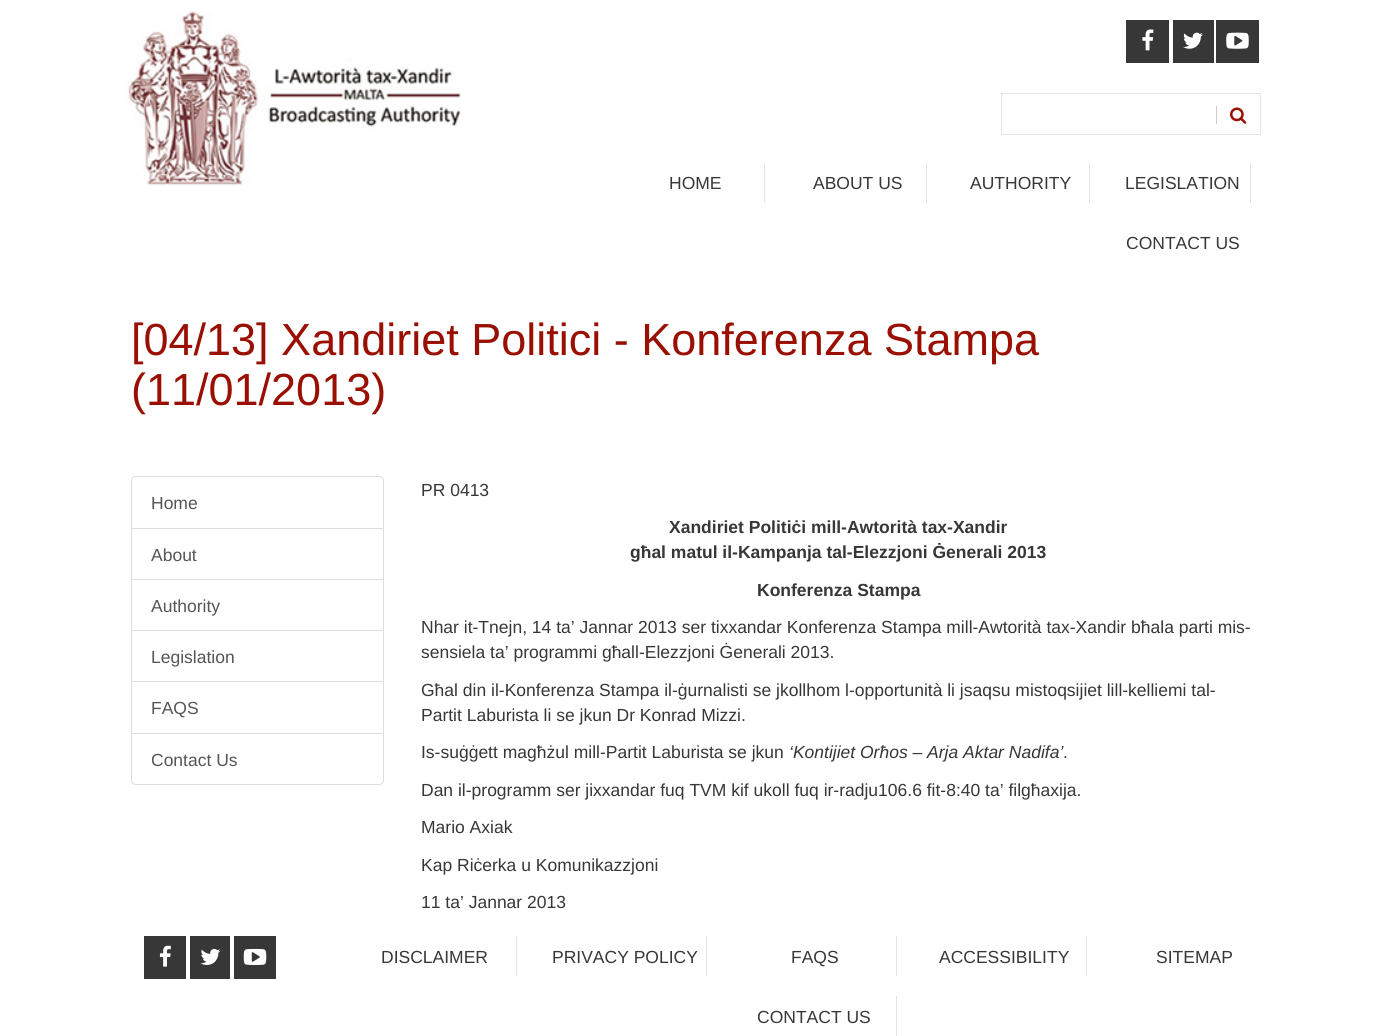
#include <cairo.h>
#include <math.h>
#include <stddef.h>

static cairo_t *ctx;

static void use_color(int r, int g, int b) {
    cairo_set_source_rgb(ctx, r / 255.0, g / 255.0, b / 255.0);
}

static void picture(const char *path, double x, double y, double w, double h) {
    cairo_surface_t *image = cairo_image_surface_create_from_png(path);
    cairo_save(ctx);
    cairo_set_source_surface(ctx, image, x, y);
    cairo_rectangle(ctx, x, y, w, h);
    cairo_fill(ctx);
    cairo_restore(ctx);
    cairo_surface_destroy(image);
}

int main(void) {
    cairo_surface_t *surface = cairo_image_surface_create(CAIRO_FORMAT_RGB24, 1386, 1036);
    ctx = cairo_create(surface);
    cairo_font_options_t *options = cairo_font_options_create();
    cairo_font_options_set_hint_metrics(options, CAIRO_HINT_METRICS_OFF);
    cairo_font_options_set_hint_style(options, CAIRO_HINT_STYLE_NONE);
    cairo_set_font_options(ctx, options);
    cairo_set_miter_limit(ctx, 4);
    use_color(255, 255, 255);
    cairo_paint(ctx);
    picture("img1.png", 126, 10, 335, 176);
    use_color(55, 55, 55);
    cairo_rectangle(ctx, 1126, 20, 43, 43);
    cairo_fill(ctx);
    picture("img2.png", 1142, 29, 12, 22);
    cairo_rectangle(ctx, 1173, 20, 41, 43);
    cairo_fill(ctx);
    picture("img3.png", 1183, 32, 20, 17);
    cairo_rectangle(ctx, 1216, 20, 43, 43);
    cairo_fill(ctx);
    picture("img4.png", 1226, 32, 23, 17);
    cairo_rectangle(ctx, 1001.5, 93.5, 259, 41);
    use_color(228, 228, 228);
    cairo_set_line_width(ctx, 1);
    cairo_stroke(ctx);
    use_color(204, 204, 204);
    cairo_rectangle(ctx, 1216, 106, 1, 18);
    cairo_fill(ctx);
    picture("img5.png", 1230, 107, 17, 17);
    use_color(228, 228, 228);
    cairo_rectangle(ctx, 764, 163, 1, 40);
    cairo_fill(ctx);
    cairo_select_font_face(ctx, "Liberation Sans", CAIRO_FONT_SLANT_NORMAL, CAIRO_FONT_WEIGHT_NORMAL);
    cairo_set_font_size(ctx, 17.5);
    use_color(55, 55, 55);
    cairo_move_to(ctx, 669, 189);
    cairo_show_text(ctx, "HOME");
    use_color(228, 228, 228);
    cairo_rectangle(ctx, 926, 163, 1, 40);
    cairo_fill(ctx);
    use_color(55, 55, 55);
    cairo_move_to(ctx, 813, 189);
    cairo_show_text(ctx, "ABOUT US");
    use_color(228, 228, 228);
    cairo_rectangle(ctx, 1089, 163, 1, 40);
    cairo_fill(ctx);
    use_color(55, 55, 55);
    cairo_move_to(ctx, 970, 189);
    cairo_show_text(ctx, "AUTHORITY");
    use_color(228, 228, 228);
    cairo_rectangle(ctx, 1250, 163, 1, 40);
    cairo_fill(ctx);
    use_color(55, 55, 55);
    cairo_move_to(ctx, 1125, 189);
    cairo_show_text(ctx, "LEGISLATION");
    cairo_move_to(ctx, 1126, 249);
    cairo_show_text(ctx, "CONTACT US");
    cairo_set_font_size(ctx, 45);
    use_color(153, 15, 2);
    cairo_move_to(ctx, 131, 355);
    cairo_show_text(ctx, "[04/13] Xandiriet Politici - Konferenza Stampa");
    cairo_move_to(ctx, 131, 405);
    cairo_show_text(ctx, "(11/01/2013)");
    cairo_new_path(ctx);
    cairo_move_to(ctx, 136, 476.5);
    cairo_line_to(ctx, 379, 476.5);
    cairo_curve_to(ctx, 381.5, 476.5, 383.5, 478.5, 383.5, 481);
    cairo_line_to(ctx, 383.5, 528.5);
    cairo_line_to(ctx, 131.5, 528.5);
    cairo_line_to(ctx, 131.5, 481);
    cairo_curve_to(ctx, 131.5, 478.5, 133.5, 476.5, 136, 476.5);
    cairo_close_path(ctx);
    use_color(221, 221, 221);
    cairo_stroke(ctx);
    cairo_set_font_size(ctx, 17.5);
    use_color(85, 85, 85);
    cairo_move_to(ctx, 151, 509);
    cairo_show_text(ctx, "Home");
    cairo_rectangle(ctx, 131.5, 528.5, 252, 51);
    use_color(221, 221, 221);
    cairo_stroke(ctx);
    use_color(85, 85, 85);
    cairo_move_to(ctx, 151, 561);
    cairo_show_text(ctx, "About");
    cairo_rectangle(ctx, 131.5, 579.5, 252, 51);
    use_color(221, 221, 221);
    cairo_stroke(ctx);
    use_color(85, 85, 85);
    cairo_move_to(ctx, 151, 612);
    cairo_show_text(ctx, "Authority");
    cairo_rectangle(ctx, 131.5, 630.5, 252, 52);
    use_color(221, 221, 221);
    cairo_stroke(ctx);
    use_color(85, 85, 85);
    cairo_move_to(ctx, 151, 663);
    cairo_show_text(ctx, "Legislation");
    use_color(255, 255, 255);
    cairo_rectangle(ctx, 132, 682, 251, 1);
    cairo_fill(ctx);
    cairo_rectangle(ctx, 131.5, 681.5, 252, 52);
    use_color(221, 221, 221);
    cairo_stroke(ctx);
    use_color(85, 85, 85);
    cairo_move_to(ctx, 151, 714);
    cairo_show_text(ctx, "FAQS");
    use_color(255, 255, 255);
    cairo_new_path(ctx);
    cairo_move_to(ctx, 131.5, 733.5);
    cairo_line_to(ctx, 383.5, 733.5);
    cairo_line_to(ctx, 383.5, 780);
    cairo_curve_to(ctx, 383.5, 782.5, 381.5, 784.5, 379, 784.5);
    cairo_line_to(ctx, 136, 784.5);
    cairo_curve_to(ctx, 133.5, 784.5, 131.5, 782.5, 131.5, 780);
    cairo_close_path(ctx);
    cairo_fill_preserve(ctx);
    use_color(221, 221, 221);
    cairo_stroke(ctx);
    use_color(85, 85, 85);
    cairo_move_to(ctx, 151, 766);
    cairo_show_text(ctx, "Contact Us");
    use_color(55, 55, 55);
    cairo_move_to(ctx, 421, 496);
    cairo_show_text(ctx, "PR 0413");
    cairo_select_font_face(ctx, "Liberation Sans", CAIRO_FONT_SLANT_NORMAL, CAIRO_FONT_WEIGHT_BOLD);
    cairo_move_to(ctx, 669, 533);
    cairo_show_text(ctx, "Xandiriet Politiċi mill-Awtorità tax-Xandir");
    cairo_move_to(ctx, 630, 558);
    cairo_show_text(ctx, "għal matul il-Kampanja tal-Elezzjoni Ġenerali 2013");
    cairo_move_to(ctx, 757, 596);
    cairo_show_text(ctx, "Konferenza Stampa");
    cairo_select_font_face(ctx, "Liberation Sans", CAIRO_FONT_SLANT_NORMAL, CAIRO_FONT_WEIGHT_NORMAL);
    cairo_move_to(ctx, 421, 633);
    cairo_show_text(ctx, "Nhar it-Tnejn, 14 ta’ Jannar 2013 ser tixxandar Konferenza Stampa mill-Awtorità tax-Xandir bħala parti mis-");
    cairo_move_to(ctx, 421, 658);
    cairo_show_text(ctx, "sensiela ta’ programmi għall-Elezzjoni Ġenerali 2013.");
    cairo_move_to(ctx, 421, 696);
    cairo_show_text(ctx, "Għal din il-Konferenza Stampa il-ġurnalisti se jkollhom l-opportunità li jsaqsu mistoqsijiet lill-kelliemi tal-");
    cairo_move_to(ctx, 421, 721);
    cairo_show_text(ctx, "Partit Laburista li se jkun Dr Konrad Mizzi.");
    cairo_move_to(ctx, 421, 758);
    cairo_show_text(ctx, "Is-suġġett magħżul mill-Partit Laburista se jkun");
    cairo_select_font_face(ctx, "Liberation Sans", CAIRO_FONT_SLANT_ITALIC, CAIRO_FONT_WEIGHT_NORMAL);
    cairo_move_to(ctx, 789, 758);
    cairo_show_text(ctx, "‘Kontijiet Orħos – Arja Aktar Nadifa’");
    cairo_select_font_face(ctx, "Liberation Sans", CAIRO_FONT_SLANT_NORMAL, CAIRO_FONT_WEIGHT_NORMAL);
    cairo_move_to(ctx, 1063, 758);
    cairo_show_text(ctx, ".");
    cairo_move_to(ctx, 421, 796);
    cairo_show_text(ctx, "Dan il-programm ser jixxandar fuq TVM kif ukoll fuq ir-radju106.6 fit-8:40 ta’ filgħaxija.");
    cairo_move_to(ctx, 421, 833);
    cairo_show_text(ctx, "Mario Axiak");
    cairo_move_to(ctx, 421, 871);
    cairo_show_text(ctx, "Kap Riċerka u Komunikazzjoni");
    cairo_move_to(ctx, 421, 908);
    cairo_show_text(ctx, "11 ta’ Jannar 2013");
    cairo_rectangle(ctx, 144, 936, 42, 43);
    cairo_fill(ctx);
    picture("img6.png", 159, 945, 12, 22);
    cairo_rectangle(ctx, 190, 936, 40, 43);
    cairo_fill(ctx);
    picture("img7.png", 200, 948, 21, 17);
    cairo_rectangle(ctx, 234, 936, 42, 43);
    cairo_fill(ctx);
    picture("img8.png", 243, 948, 24, 17);
    use_color(228, 228, 228);
    cairo_rectangle(ctx, 516, 936, 1, 40);
    cairo_fill(ctx);
    use_color(55, 55, 55);
    cairo_move_to(ctx, 381, 963);
    cairo_show_text(ctx, "DISCLAIMER");
    use_color(228, 228, 228);
    cairo_rectangle(ctx, 706, 936, 1, 40);
    cairo_fill(ctx);
    use_color(55, 55, 55);
    cairo_move_to(ctx, 552, 963);
    cairo_show_text(ctx, "PRIVACY POLICY");
    use_color(228, 228, 228);
    cairo_rectangle(ctx, 896, 936, 1, 40);
    cairo_fill(ctx);
    use_color(55, 55, 55);
    cairo_move_to(ctx, 791, 963);
    cairo_show_text(ctx, "FAQS");
    use_color(228, 228, 228);
    cairo_rectangle(ctx, 1086, 936, 1, 40);
    cairo_fill(ctx);
    use_color(55, 55, 55);
    cairo_move_to(ctx, 939, 963);
    cairo_show_text(ctx, "ACCESSIBILITY");
    cairo_move_to(ctx, 1156, 963);
    cairo_show_text(ctx, "SITEMAP");
    use_color(228, 228, 228);
    cairo_rectangle(ctx, 896, 996, 1, 40);
    cairo_fill(ctx);
    use_color(55, 55, 55);
    cairo_move_to(ctx, 757, 1023);
    cairo_show_text(ctx, "CONTACT US");
    cairo_surface_write_to_png(surface, "result.png");
    cairo_font_options_destroy(options);
    cairo_destroy(ctx);
    cairo_surface_destroy(surface);
    return 0;
}
